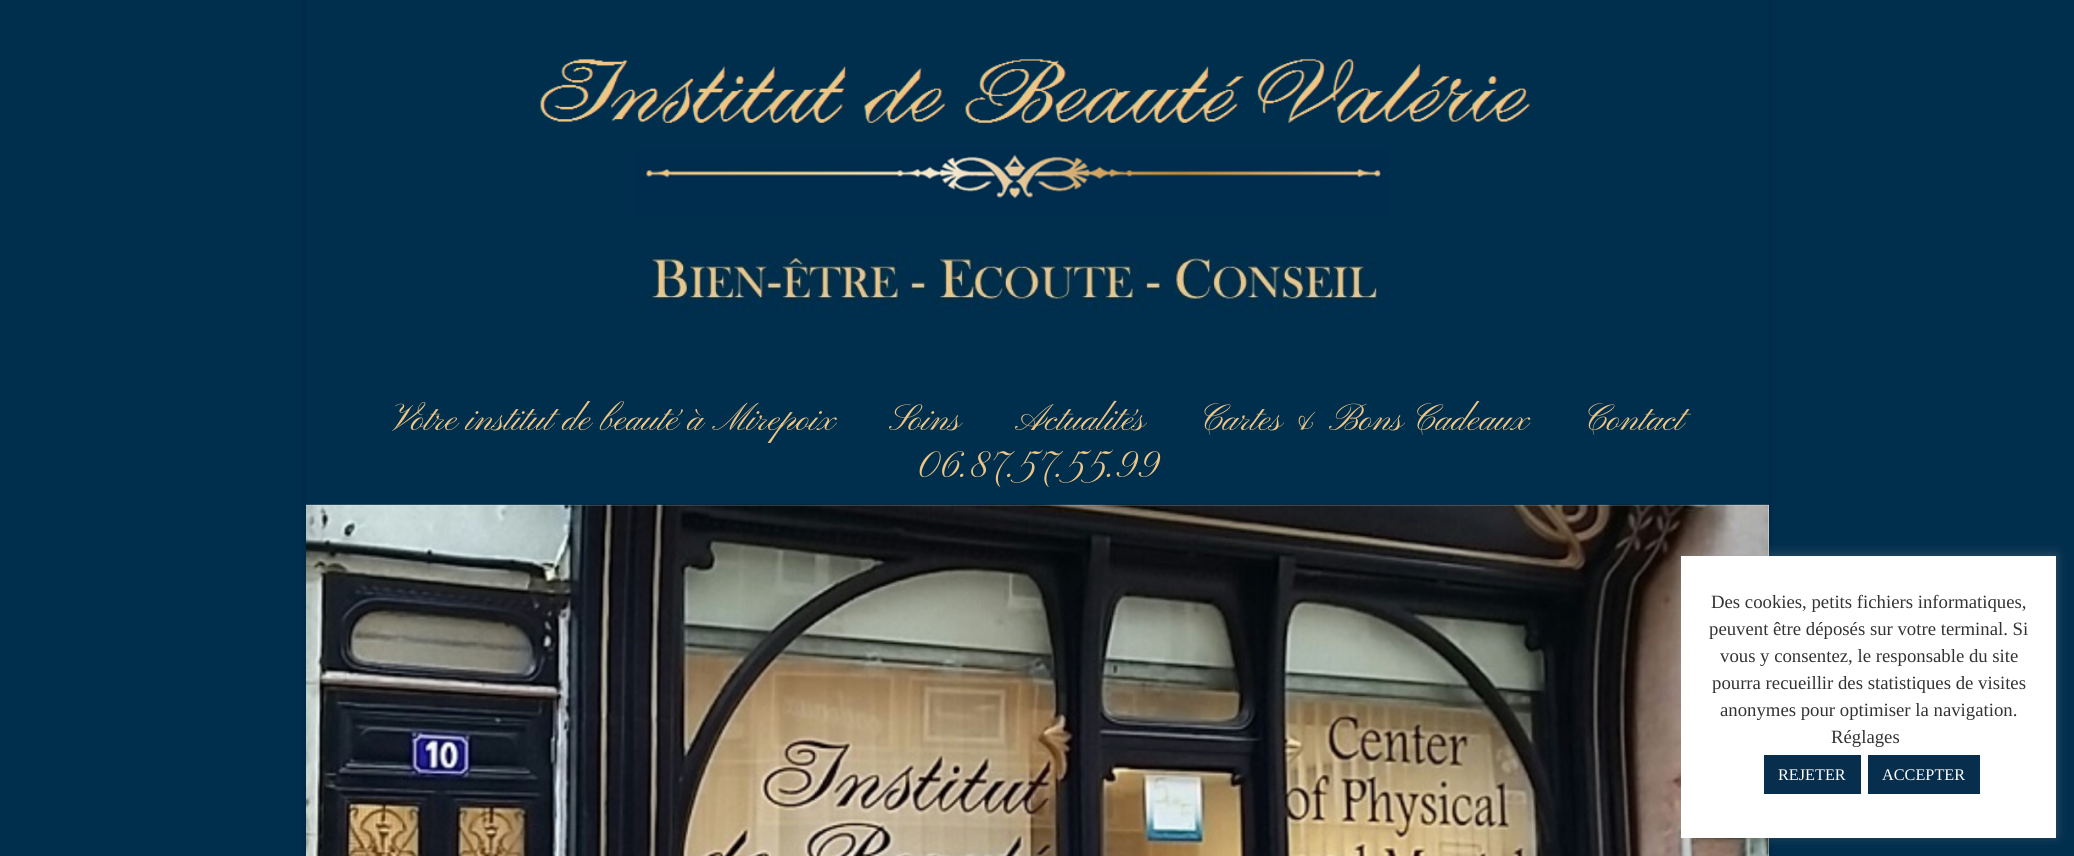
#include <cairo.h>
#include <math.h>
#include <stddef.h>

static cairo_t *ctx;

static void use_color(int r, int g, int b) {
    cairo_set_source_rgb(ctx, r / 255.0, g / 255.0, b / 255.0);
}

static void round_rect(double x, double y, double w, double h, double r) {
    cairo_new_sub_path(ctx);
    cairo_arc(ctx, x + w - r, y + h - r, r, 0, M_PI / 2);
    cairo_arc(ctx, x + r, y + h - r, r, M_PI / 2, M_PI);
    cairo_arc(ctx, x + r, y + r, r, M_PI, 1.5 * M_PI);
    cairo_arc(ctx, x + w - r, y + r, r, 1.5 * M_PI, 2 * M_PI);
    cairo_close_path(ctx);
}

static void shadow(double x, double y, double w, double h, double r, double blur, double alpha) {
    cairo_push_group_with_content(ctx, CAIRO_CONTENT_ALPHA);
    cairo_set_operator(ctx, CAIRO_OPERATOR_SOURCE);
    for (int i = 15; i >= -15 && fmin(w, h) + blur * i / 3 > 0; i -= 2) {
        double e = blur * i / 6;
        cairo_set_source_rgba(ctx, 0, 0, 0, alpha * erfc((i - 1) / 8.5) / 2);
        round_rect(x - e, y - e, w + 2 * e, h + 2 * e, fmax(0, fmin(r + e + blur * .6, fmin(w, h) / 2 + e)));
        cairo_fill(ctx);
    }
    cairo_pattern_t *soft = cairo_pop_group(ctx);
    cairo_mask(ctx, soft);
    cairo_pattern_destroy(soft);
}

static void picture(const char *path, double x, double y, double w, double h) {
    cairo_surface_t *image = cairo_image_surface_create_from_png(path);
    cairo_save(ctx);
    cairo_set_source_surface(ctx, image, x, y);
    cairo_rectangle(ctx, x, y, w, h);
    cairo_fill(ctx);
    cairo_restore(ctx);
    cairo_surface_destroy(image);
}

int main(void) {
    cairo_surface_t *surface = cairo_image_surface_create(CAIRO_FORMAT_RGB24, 2074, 856);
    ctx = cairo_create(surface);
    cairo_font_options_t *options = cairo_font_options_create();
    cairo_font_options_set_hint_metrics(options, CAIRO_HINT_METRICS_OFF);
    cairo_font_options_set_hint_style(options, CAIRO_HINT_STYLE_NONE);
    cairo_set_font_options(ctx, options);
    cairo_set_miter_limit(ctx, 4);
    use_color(0, 46, 77);
    cairo_paint(ctx);
    use_color(0, 0, 0);
    shadow(305, -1, 1465, 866, 0, 3, 0.16);
    use_color(0, 46, 77);
    cairo_rectangle(ctx, 306, 0, 1463, 505);
    cairo_fill(ctx);
    picture("img1.png", 539, 59, 991, 255);
    cairo_select_font_face(ctx, "Pinyon Script", CAIRO_FONT_SLANT_NORMAL, CAIRO_FONT_WEIGHT_NORMAL);
    cairo_set_font_size(ctx, 37.5);
    use_color(237, 197, 133);
    cairo_move_to(ctx, 392, 430);
    cairo_show_text(ctx, "Votre institut de beauté à Mirepoix");
    cairo_move_to(ctx, 889, 430);
    cairo_show_text(ctx, "Soins");
    cairo_move_to(ctx, 1015, 430);
    cairo_show_text(ctx, "Actualités");
    cairo_move_to(ctx, 1199, 430);
    cairo_show_text(ctx, "Cartes & Bons Cadeaux");
    cairo_move_to(ctx, 1583, 430);
    cairo_show_text(ctx, "Contact");
    cairo_move_to(ctx, 916, 477);
    cairo_show_text(ctx, "06.87.57.55.99");
    use_color(255, 255, 255);
    cairo_rectangle(ctx, 306, 505, 1463, 351);
    cairo_fill(ctx);
    picture("img2.png", 306, 504, 1463, 352);
    use_color(172, 171, 171);
    shadow(1681, 555, 375, 281, 0, 6, 0.3);
    use_color(255, 255, 255);
    cairo_rectangle(ctx, 1681, 556, 375, 282);
    cairo_fill(ctx);
    cairo_select_font_face(ctx, "Liberation Serif", CAIRO_FONT_SLANT_NORMAL, CAIRO_FONT_WEIGHT_NORMAL);
    cairo_set_font_size(ctx, 18.75);
    use_color(51, 51, 51);
    cairo_move_to(ctx, 1711, 608);
    cairo_show_text(ctx, "Des cookies, petits fichiers informatiques,");
    cairo_move_to(ctx, 1709, 635);
    cairo_show_text(ctx, "peuvent être déposés sur votre terminal. Si");
    cairo_move_to(ctx, 1720, 662);
    cairo_show_text(ctx, "vous y consentez, le responsable du site");
    cairo_move_to(ctx, 1712, 689);
    cairo_show_text(ctx, "pourra recueillir des statistiques de visites");
    cairo_move_to(ctx, 1720, 716);
    cairo_show_text(ctx, "anonymes pour optimiser la navigation.");
    cairo_move_to(ctx, 1831, 743);
    cairo_show_text(ctx, "Réglages");
    use_color(7, 46, 77);
    cairo_rectangle(ctx, 1764, 755, 97, 39);
    cairo_fill(ctx);
    cairo_set_font_size(ctx, 16.25);
    use_color(255, 255, 255);
    cairo_move_to(ctx, 1778, 780);
    cairo_show_text(ctx, "REJETER");
    use_color(7, 46, 77);
    cairo_rectangle(ctx, 1868, 755, 112, 39);
    cairo_fill(ctx);
    use_color(255, 255, 255);
    cairo_move_to(ctx, 1882, 780);
    cairo_show_text(ctx, "ACCEPTER");
    cairo_surface_write_to_png(surface, "result.png");
    cairo_font_options_destroy(options);
    cairo_destroy(ctx);
    cairo_surface_destroy(surface);
    return 0;
}
